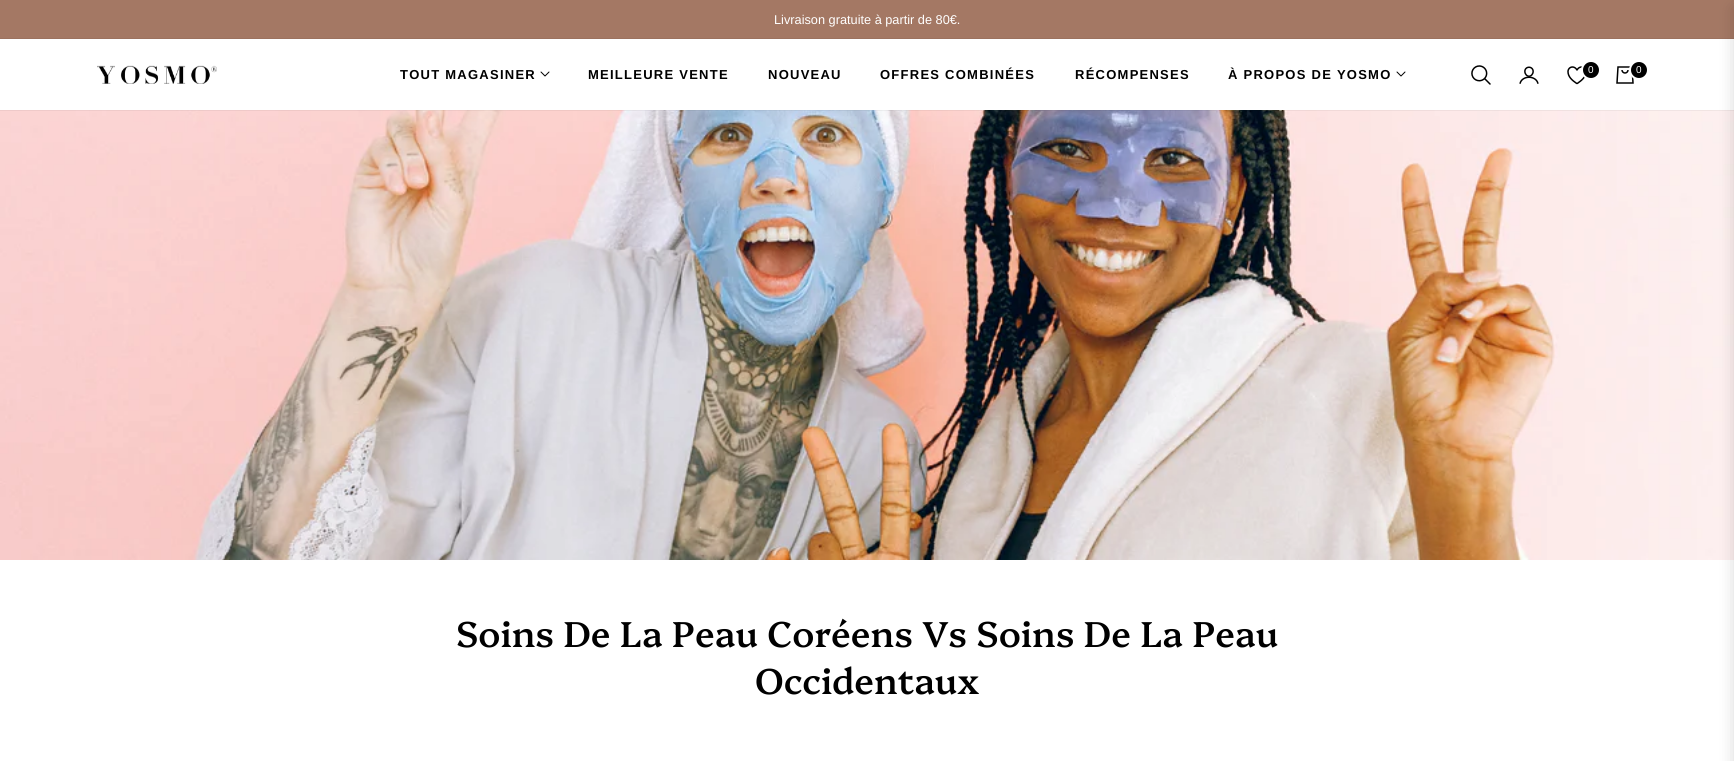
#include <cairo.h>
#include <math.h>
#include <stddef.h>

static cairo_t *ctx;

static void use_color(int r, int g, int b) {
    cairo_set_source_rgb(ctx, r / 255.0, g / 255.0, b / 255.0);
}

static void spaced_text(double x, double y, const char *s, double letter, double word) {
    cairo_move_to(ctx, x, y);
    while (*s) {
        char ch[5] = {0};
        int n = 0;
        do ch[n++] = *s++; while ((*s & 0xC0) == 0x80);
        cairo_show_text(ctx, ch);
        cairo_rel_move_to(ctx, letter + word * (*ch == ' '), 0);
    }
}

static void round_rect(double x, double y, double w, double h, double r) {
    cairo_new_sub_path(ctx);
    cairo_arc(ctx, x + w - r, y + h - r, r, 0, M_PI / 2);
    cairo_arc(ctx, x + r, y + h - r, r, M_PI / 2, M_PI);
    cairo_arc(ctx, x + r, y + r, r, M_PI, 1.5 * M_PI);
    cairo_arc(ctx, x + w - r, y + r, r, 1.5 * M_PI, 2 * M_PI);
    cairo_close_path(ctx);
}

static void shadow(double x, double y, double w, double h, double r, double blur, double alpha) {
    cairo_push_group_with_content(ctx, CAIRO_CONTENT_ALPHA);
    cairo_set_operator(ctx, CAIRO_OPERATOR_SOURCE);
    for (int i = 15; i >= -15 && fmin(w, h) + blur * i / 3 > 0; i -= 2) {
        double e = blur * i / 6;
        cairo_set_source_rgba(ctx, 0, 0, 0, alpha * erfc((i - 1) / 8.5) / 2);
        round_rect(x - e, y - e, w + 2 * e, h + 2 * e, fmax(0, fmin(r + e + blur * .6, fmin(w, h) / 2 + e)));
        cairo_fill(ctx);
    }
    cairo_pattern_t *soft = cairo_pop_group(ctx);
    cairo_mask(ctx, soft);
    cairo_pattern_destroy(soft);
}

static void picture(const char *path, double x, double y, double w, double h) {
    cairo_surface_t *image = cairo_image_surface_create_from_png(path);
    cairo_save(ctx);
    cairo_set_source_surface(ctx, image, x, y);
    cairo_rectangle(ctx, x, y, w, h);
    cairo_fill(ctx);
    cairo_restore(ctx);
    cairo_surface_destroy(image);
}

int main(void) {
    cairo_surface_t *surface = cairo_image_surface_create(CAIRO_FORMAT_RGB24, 1734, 761);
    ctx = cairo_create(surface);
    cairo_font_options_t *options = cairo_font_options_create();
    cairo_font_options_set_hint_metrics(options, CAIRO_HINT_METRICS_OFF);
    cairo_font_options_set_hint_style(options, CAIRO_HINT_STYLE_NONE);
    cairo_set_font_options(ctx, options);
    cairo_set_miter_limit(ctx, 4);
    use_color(255, 255, 255);
    cairo_paint(ctx);
    use_color(164, 120, 100);
    cairo_rectangle(ctx, 0, 0, 1734, 39);
    cairo_fill(ctx);
    cairo_select_font_face(ctx, "Liberation Sans", CAIRO_FONT_SLANT_NORMAL, CAIRO_FONT_WEIGHT_NORMAL);
    cairo_set_font_size(ctx, 12.75);
    use_color(255, 255, 255);
    cairo_move_to(ctx, 774, 24);
    cairo_show_text(ctx, "Livraison gratuite à partir de 80€.");
    picture("img7.png", 0, 110, 1734, 450);
    cairo_rectangle(ctx, -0.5, 38.5, 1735, 72);
    cairo_set_source_rgba(ctx, 0, 0, 0, 0.05);
    cairo_set_line_width(ctx, 1);
    cairo_stroke(ctx);
    picture("img1.png", 97, 65, 120, 19);
    cairo_select_font_face(ctx, "Liberation Sans", CAIRO_FONT_SLANT_NORMAL, CAIRO_FONT_WEIGHT_BOLD);
    cairo_set_font_size(ctx, 13);
    use_color(0, 0, 0);
    spaced_text(400, 79, "TOUT MAGASINER", 1.25, 0);
    picture("img2.png", 540, 71, 10, 6);
    spaced_text(588, 79, "MEILLEURE VENTE", 1.25, 0);
    spaced_text(768, 79, "NOUVEAU", 1.25, 0);
    spaced_text(880, 79, "OFFRES COMBINÉES", 1.25, 0);
    spaced_text(1075, 79, "RÉCOMPENSES", 1.25, 0);
    spaced_text(1228, 79, "À PROPOS DE YOSMO", 1.25, 0);
    picture("img2.png", 1396, 71, 10, 6);
    picture("img3.png", 1471, 65, 20, 20);
    picture("img4.png", 1519, 66, 20, 18);
    picture("img5.png", 1567, 66, 18, 19);
    cairo_arc(ctx, 1591, 70, 9, 0, 2 * M_PI);
    cairo_fill_preserve(ctx);
    use_color(255, 255, 255);
    cairo_set_line_width(ctx, 2);
    cairo_stroke(ctx);
    cairo_select_font_face(ctx, "Liberation Sans", CAIRO_FONT_SLANT_NORMAL, CAIRO_FONT_WEIGHT_NORMAL);
    cairo_set_font_size(ctx, 10);
    spaced_text(1588, 73, "0", 1.25, 0);
    picture("img6.png", 1616, 66, 18, 18);
    use_color(0, 0, 0);
    cairo_arc(ctx, 1639, 70, 9, 0, 2 * M_PI);
    cairo_fill_preserve(ctx);
    use_color(255, 255, 255);
    cairo_stroke(ctx);
    spaced_text(1636, 73, "0", 1.25, 0);
    use_color(0, 0, 0);
    shadow(1734, 8, 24, 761, 0, 8, 0.15);
    cairo_select_font_face(ctx, "Platypi Medium", CAIRO_FONT_SLANT_NORMAL, CAIRO_FONT_WEIGHT_NORMAL);
    cairo_set_font_size(ctx, 36);
    use_color(0, 0, 0);
    cairo_move_to(ctx, 456, 647);
    cairo_show_text(ctx, "Soins De La Peau Coréens Vs Soins De La Peau");
    cairo_move_to(ctx, 755, 694);
    cairo_show_text(ctx, "Occidentaux");
    cairo_surface_write_to_png(surface, "result.png");
    cairo_font_options_destroy(options);
    cairo_destroy(ctx);
    cairo_surface_destroy(surface);
    return 0;
}
